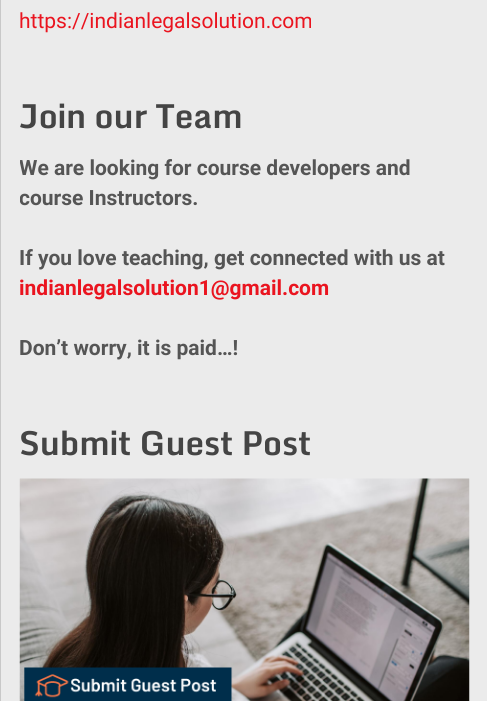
#include <cairo.h>
#include <math.h>
#include <stddef.h>

static cairo_t *ctx;

static void use_color(int r, int g, int b) {
    cairo_set_source_rgb(ctx, r / 255.0, g / 255.0, b / 255.0);
}

static void picture(const char *path, double x, double y, double w, double h) {
    cairo_surface_t *image = cairo_image_surface_create_from_png(path);
    cairo_save(ctx);
    cairo_set_source_surface(ctx, image, x, y);
    cairo_rectangle(ctx, x, y, w, h);
    cairo_fill(ctx);
    cairo_restore(ctx);
    cairo_surface_destroy(image);
}

int main(void) {
    cairo_surface_t *surface = cairo_image_surface_create(CAIRO_FORMAT_RGB24, 487, 701);
    ctx = cairo_create(surface);
    cairo_font_options_t *options = cairo_font_options_create();
    cairo_font_options_set_hint_metrics(options, CAIRO_HINT_METRICS_OFF);
    cairo_font_options_set_hint_style(options, CAIRO_HINT_STYLE_NONE);
    cairo_set_font_options(ctx, options);
    cairo_set_miter_limit(ctx, 4);
    use_color(235, 235, 235);
    cairo_paint(ctx);
    use_color(200, 200, 200);
    cairo_rectangle(ctx, 0, 0, 1, 701);
    cairo_fill(ctx);
    cairo_select_font_face(ctx, "Roboto", CAIRO_FONT_SLANT_NORMAL, CAIRO_FONT_WEIGHT_NORMAL);
    cairo_set_font_size(ctx, 21);
    use_color(234, 20, 31);
    cairo_move_to(ctx, 19, 28);
    cairo_show_text(ctx, "https://indianlegalsolution.com");
    cairo_select_font_face(ctx, "Monda", CAIRO_FONT_SLANT_NORMAL, CAIRO_FONT_WEIGHT_BOLD);
    cairo_set_font_size(ctx, 33);
    use_color(68, 68, 68);
    cairo_move_to(ctx, 19, 128);
    cairo_show_text(ctx, "Join our Team");
    cairo_save(ctx);
    cairo_rectangle(ctx, 20, 95, 450, 297);
    cairo_clip(ctx);
    cairo_select_font_face(ctx, "Roboto", CAIRO_FONT_SLANT_NORMAL, CAIRO_FONT_WEIGHT_BOLD);
    cairo_set_font_size(ctx, 21);
    use_color(85, 85, 85);
    cairo_move_to(ctx, 19, 175);
    cairo_show_text(ctx, "We are looking for course developers and");
    cairo_move_to(ctx, 19, 205);
    cairo_show_text(ctx, "course Instructors.");
    cairo_restore(ctx);
    cairo_select_font_face(ctx, "Roboto", CAIRO_FONT_SLANT_NORMAL, CAIRO_FONT_WEIGHT_BOLD);
    cairo_set_font_size(ctx, 21);
    use_color(85, 85, 85);
    cairo_move_to(ctx, 19, 265);
    cairo_show_text(ctx, "If you love teaching, get connected with us at");
    use_color(234, 20, 31);
    cairo_move_to(ctx, 19, 295);
    cairo_show_text(ctx, "indianlegalsolution1@gmail.com");
    use_color(85, 85, 85);
    cairo_move_to(ctx, 19, 355);
    cairo_show_text(ctx, "Don’t worry, it is paid…!");
    cairo_select_font_face(ctx, "Monda", CAIRO_FONT_SLANT_NORMAL, CAIRO_FONT_WEIGHT_BOLD);
    cairo_set_font_size(ctx, 33);
    use_color(68, 68, 68);
    cairo_move_to(ctx, 19, 455);
    cairo_show_text(ctx, "Submit Guest Post");
    picture("img1.png", 19, 478, 451, 223);
    cairo_surface_write_to_png(surface, "result.png");
    cairo_font_options_destroy(options);
    cairo_destroy(ctx);
    cairo_surface_destroy(surface);
    return 0;
}
